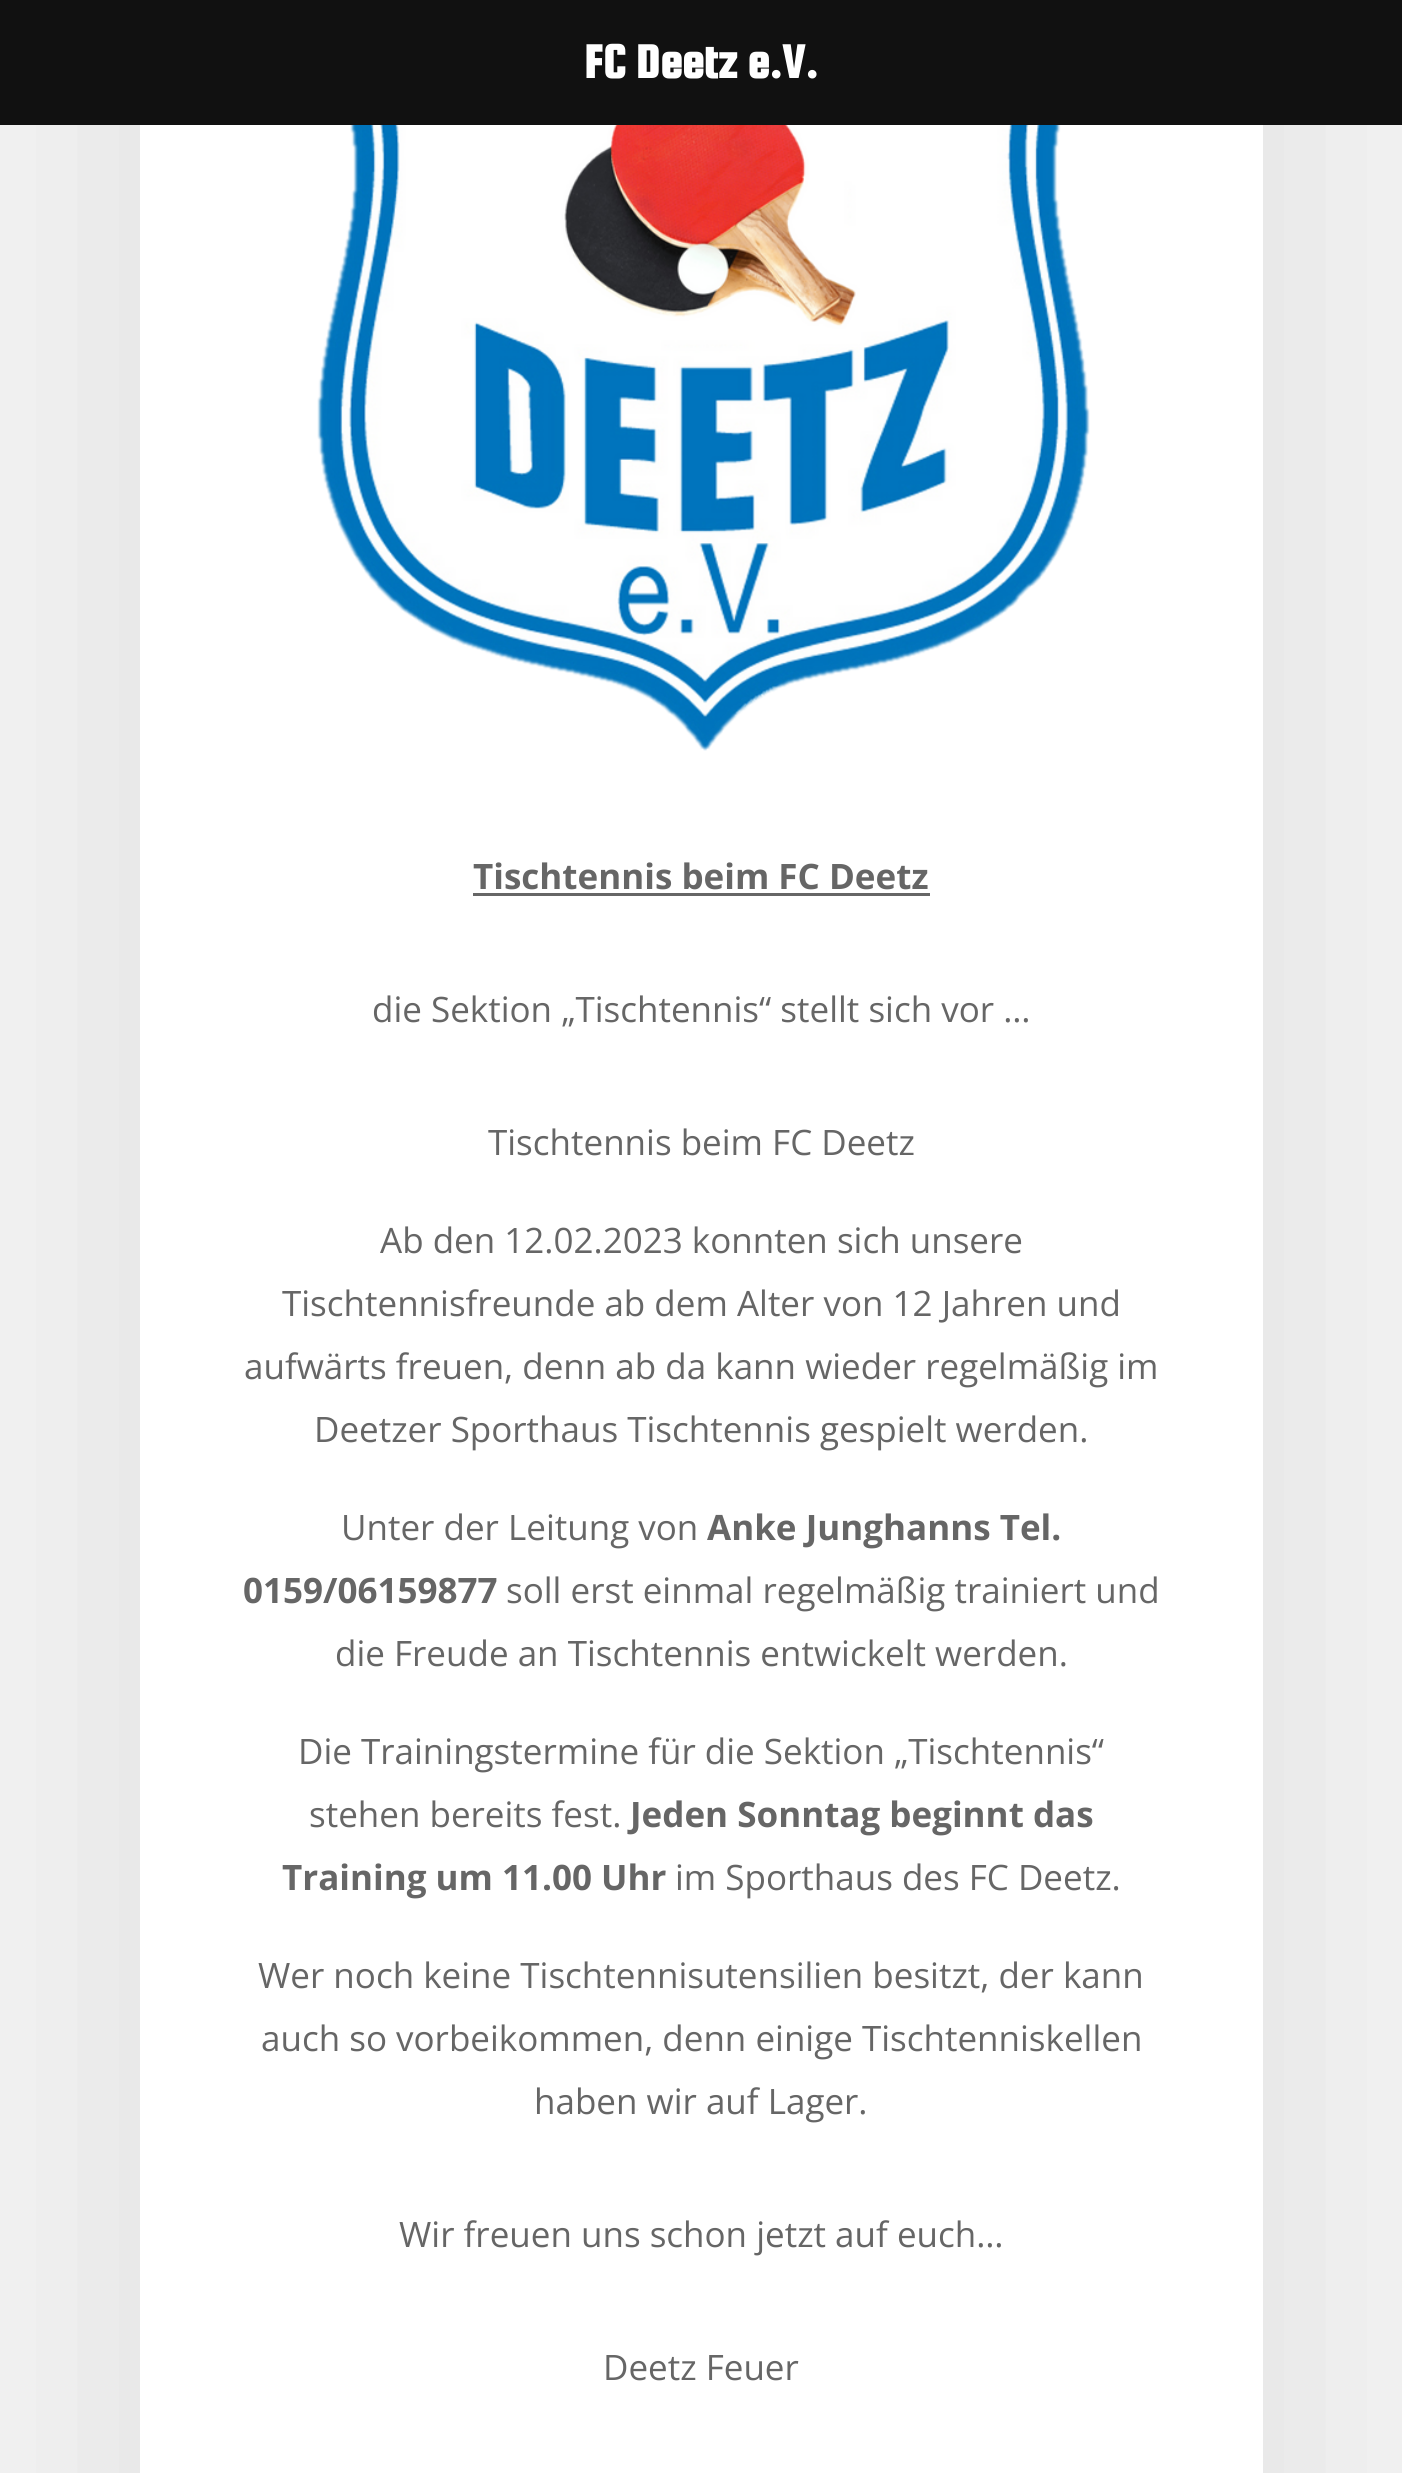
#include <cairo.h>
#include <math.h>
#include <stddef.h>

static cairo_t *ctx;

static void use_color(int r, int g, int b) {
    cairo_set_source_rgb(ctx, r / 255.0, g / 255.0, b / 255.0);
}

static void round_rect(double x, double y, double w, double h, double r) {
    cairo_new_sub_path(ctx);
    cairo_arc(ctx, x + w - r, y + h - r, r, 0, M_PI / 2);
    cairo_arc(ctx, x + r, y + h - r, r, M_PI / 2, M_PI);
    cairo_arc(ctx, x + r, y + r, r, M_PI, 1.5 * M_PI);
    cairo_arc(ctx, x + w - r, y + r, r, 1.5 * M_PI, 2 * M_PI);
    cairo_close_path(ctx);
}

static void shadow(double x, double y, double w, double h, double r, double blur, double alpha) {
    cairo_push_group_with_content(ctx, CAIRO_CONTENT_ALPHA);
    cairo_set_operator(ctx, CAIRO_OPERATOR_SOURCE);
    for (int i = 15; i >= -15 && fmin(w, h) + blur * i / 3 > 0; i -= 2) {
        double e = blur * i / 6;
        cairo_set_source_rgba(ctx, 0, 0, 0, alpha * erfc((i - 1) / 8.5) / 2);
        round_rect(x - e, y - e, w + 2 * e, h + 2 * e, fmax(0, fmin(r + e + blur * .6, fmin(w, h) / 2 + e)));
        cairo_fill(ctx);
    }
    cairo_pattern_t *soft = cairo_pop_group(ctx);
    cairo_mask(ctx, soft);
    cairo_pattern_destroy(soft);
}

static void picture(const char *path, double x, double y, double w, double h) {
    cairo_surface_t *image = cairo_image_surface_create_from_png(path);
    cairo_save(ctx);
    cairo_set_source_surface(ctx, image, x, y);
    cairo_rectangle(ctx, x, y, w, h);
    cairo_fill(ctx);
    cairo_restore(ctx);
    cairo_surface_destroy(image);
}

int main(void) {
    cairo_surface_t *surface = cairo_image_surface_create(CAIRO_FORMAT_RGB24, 1402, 2473);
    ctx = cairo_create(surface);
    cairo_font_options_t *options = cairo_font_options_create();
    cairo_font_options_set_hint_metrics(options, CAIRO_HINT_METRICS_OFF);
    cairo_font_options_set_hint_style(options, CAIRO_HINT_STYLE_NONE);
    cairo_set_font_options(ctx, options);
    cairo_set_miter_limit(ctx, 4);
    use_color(244, 244, 244);
    cairo_paint(ctx);
    use_color(0, 0, 0);
    shadow(140, -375, 1123, 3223, 0, 125, 0.1);
    use_color(17, 17, 17);
    cairo_rectangle(ctx, 0, 0, 1402, 125);
    cairo_fill(ctx);
    cairo_select_font_face(ctx, "Squada One", CAIRO_FONT_SLANT_NORMAL, CAIRO_FONT_WEIGHT_BOLD);
    cairo_set_font_size(ctx, 50);
    use_color(255, 255, 255);
    cairo_move_to(ctx, 584, 78);
    cairo_show_text(ctx, "FC Deetz e.V.");
    cairo_rectangle(ctx, 140, 125, 1123, 2348);
    cairo_fill(ctx);
    picture("img1.png", 317, 125, 773, 626);
    cairo_select_font_face(ctx, "Open Sans", CAIRO_FONT_SLANT_NORMAL, CAIRO_FONT_WEIGHT_BOLD);
    cairo_set_font_size(ctx, 35);
    use_color(102, 102, 102);
    cairo_move_to(ctx, 473, 889);
    cairo_show_text(ctx, "Tischtennis beim FC Deetz");
    cairo_rectangle(ctx, 473, 893, 457, 3);
    cairo_fill(ctx);
    cairo_select_font_face(ctx, "Open Sans", CAIRO_FONT_SLANT_NORMAL, CAIRO_FONT_WEIGHT_NORMAL);
    cairo_move_to(ctx, 372, 1022);
    cairo_show_text(ctx, "die Sektion „Tischtennis“ stellt sich vor …");
    cairo_move_to(ctx, 488, 1155);
    cairo_show_text(ctx, "Tischtennis beim FC Deetz");
    cairo_move_to(ctx, 380, 1253);
    cairo_show_text(ctx, "Ab den 12.02.2023 konnten sich unsere");
    cairo_move_to(ctx, 282, 1316);
    cairo_show_text(ctx, "Tischtennisfreunde ab dem Alter von 12 Jahren und");
    cairo_move_to(ctx, 244, 1379);
    cairo_show_text(ctx, "aufwärts freuen, denn ab da kann wieder regelmäßig im");
    cairo_move_to(ctx, 314, 1442);
    cairo_show_text(ctx, "Deetzer Sporthaus Tischtennis gespielt werden.");
    cairo_move_to(ctx, 341, 1540);
    cairo_show_text(ctx, "Unter der Leitung von");
    cairo_select_font_face(ctx, "Open Sans", CAIRO_FONT_SLANT_NORMAL, CAIRO_FONT_WEIGHT_BOLD);
    cairo_move_to(ctx, 707, 1540);
    cairo_show_text(ctx, "Anke Junghanns Tel.");
    cairo_move_to(ctx, 243, 1603);
    cairo_show_text(ctx, "0159/06159877");
    cairo_select_font_face(ctx, "Open Sans", CAIRO_FONT_SLANT_NORMAL, CAIRO_FONT_WEIGHT_NORMAL);
    cairo_move_to(ctx, 506, 1603);
    cairo_show_text(ctx, "soll erst einmal regelmäßig trainiert und");
    cairo_move_to(ctx, 335, 1666);
    cairo_show_text(ctx, "die Freude an Tischtennis entwickelt werden.");
    cairo_move_to(ctx, 298, 1764);
    cairo_show_text(ctx, "Die Trainingstermine für die Sektion „Tischtennis“");
    cairo_move_to(ctx, 309, 1827);
    cairo_show_text(ctx, "stehen bereits fest.");
    cairo_select_font_face(ctx, "Open Sans", CAIRO_FONT_SLANT_NORMAL, CAIRO_FONT_WEIGHT_BOLD);
    cairo_move_to(ctx, 630, 1827);
    cairo_show_text(ctx, "Jeden Sonntag beginnt das");
    cairo_move_to(ctx, 282, 1890);
    cairo_show_text(ctx, "Training um 11.00 Uhr");
    cairo_select_font_face(ctx, "Open Sans", CAIRO_FONT_SLANT_NORMAL, CAIRO_FONT_WEIGHT_NORMAL);
    cairo_move_to(ctx, 675, 1890);
    cairo_show_text(ctx, "im Sporthaus des FC Deetz.");
    cairo_move_to(ctx, 258, 1988);
    cairo_show_text(ctx, "Wer noch keine Tischtennisutensilien besitzt, der kann");
    cairo_move_to(ctx, 261, 2051);
    cairo_show_text(ctx, "auch so vorbeikommen, denn einige Tischtenniskellen");
    cairo_move_to(ctx, 534, 2114);
    cairo_show_text(ctx, "haben wir auf Lager.");
    cairo_move_to(ctx, 399, 2247);
    cairo_show_text(ctx, "Wir freuen uns schon jetzt auf euch…");
    cairo_move_to(ctx, 603, 2380);
    cairo_show_text(ctx, "Deetz Feuer");
    cairo_surface_write_to_png(surface, "result.png");
    cairo_font_options_destroy(options);
    cairo_destroy(ctx);
    cairo_surface_destroy(surface);
    return 0;
}
